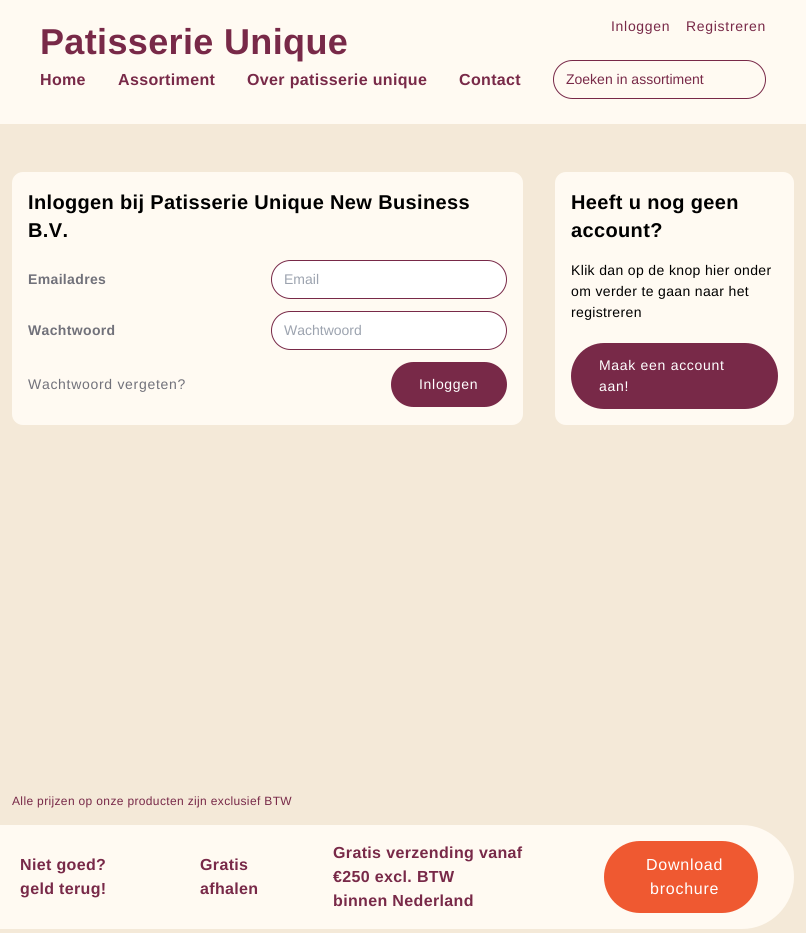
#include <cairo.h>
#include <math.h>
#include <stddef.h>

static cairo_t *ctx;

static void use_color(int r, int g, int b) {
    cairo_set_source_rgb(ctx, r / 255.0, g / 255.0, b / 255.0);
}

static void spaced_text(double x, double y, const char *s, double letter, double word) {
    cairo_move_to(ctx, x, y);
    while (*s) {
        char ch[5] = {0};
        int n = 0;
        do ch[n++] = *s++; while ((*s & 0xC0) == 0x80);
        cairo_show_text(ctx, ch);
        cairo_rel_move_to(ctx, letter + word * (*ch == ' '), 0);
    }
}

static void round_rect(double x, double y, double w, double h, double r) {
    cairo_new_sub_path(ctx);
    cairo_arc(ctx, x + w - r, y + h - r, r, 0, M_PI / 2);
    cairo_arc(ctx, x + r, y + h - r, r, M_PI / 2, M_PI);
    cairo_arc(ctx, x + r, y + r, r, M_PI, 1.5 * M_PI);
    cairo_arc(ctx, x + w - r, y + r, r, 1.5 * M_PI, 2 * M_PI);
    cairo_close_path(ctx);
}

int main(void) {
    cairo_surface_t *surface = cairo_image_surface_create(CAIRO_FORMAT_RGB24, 806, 933);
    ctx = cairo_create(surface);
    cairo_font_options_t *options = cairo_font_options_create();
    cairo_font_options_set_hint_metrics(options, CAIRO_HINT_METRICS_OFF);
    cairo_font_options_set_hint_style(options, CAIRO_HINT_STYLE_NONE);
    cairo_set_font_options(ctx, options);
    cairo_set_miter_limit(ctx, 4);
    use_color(244, 233, 216);
    cairo_paint(ctx);
    use_color(255, 250, 242);
    cairo_rectangle(ctx, 0, 0, 806, 124);
    cairo_fill(ctx);
    cairo_select_font_face(ctx, "Liberation Sans", CAIRO_FONT_SLANT_NORMAL, CAIRO_FONT_WEIGHT_BOLD);
    cairo_set_font_size(ctx, 36);
    use_color(120, 41, 72);
    spaced_text(40, 54, "Patisserie Unique", 0.35, 0);
    cairo_select_font_face(ctx, "Liberation Sans", CAIRO_FONT_SLANT_NORMAL, CAIRO_FONT_WEIGHT_NORMAL);
    cairo_set_font_size(ctx, 14);
    spaced_text(611, 31, "Inloggen", 0.7, 0);
    spaced_text(686, 31, "Registreren", 0.7, 0);
    cairo_select_font_face(ctx, "Liberation Sans", CAIRO_FONT_SLANT_NORMAL, CAIRO_FONT_WEIGHT_BOLD);
    cairo_set_font_size(ctx, 16);
    spaced_text(40, 85, "Home", 0.35, 0);
    spaced_text(118, 85, "Assortiment", 0.35, 0);
    spaced_text(247, 85, "Over patisserie unique", 0.35, 0);
    spaced_text(459, 85, "Contact", 0.35, 0);
    round_rect(553.5, 60.5, 212, 38, 19);
    cairo_set_line_width(ctx, 1);
    cairo_stroke(ctx);
    cairo_select_font_face(ctx, "Liberation Sans", CAIRO_FONT_SLANT_NORMAL, CAIRO_FONT_WEIGHT_NORMAL);
    cairo_set_font_size(ctx, 14);
    cairo_move_to(ctx, 566, 84);
    cairo_show_text(ctx, "Zoeken in assortiment");
    use_color(255, 250, 242);
    round_rect(12, 172, 511, 253, 11);
    cairo_fill(ctx);
    cairo_select_font_face(ctx, "Liberation Sans", CAIRO_FONT_SLANT_NORMAL, CAIRO_FONT_WEIGHT_BOLD);
    cairo_set_font_size(ctx, 20);
    use_color(0, 0, 0);
    spaced_text(28, 209, "Inloggen bij Patisserie Unique New Business", 0.35, 0);
    spaced_text(28, 237, "B.V.", 0.35, 0);
    cairo_set_font_size(ctx, 14);
    use_color(113, 113, 122);
    spaced_text(28, 284, "Emailadres", 0.35, 0);
    use_color(255, 255, 255);
    round_rect(271.5, 260.5, 235, 38, 19);
    cairo_fill_preserve(ctx);
    use_color(120, 41, 72);
    cairo_stroke(ctx);
    cairo_select_font_face(ctx, "Liberation Sans", CAIRO_FONT_SLANT_NORMAL, CAIRO_FONT_WEIGHT_NORMAL);
    use_color(156, 163, 175);
    cairo_move_to(ctx, 284, 284);
    cairo_show_text(ctx, "Email");
    cairo_select_font_face(ctx, "Liberation Sans", CAIRO_FONT_SLANT_NORMAL, CAIRO_FONT_WEIGHT_BOLD);
    use_color(113, 113, 122);
    spaced_text(28, 335, "Wachtwoord", 0.35, 0);
    use_color(255, 255, 255);
    round_rect(271.5, 311.5, 235, 38, 19);
    cairo_fill_preserve(ctx);
    use_color(120, 41, 72);
    cairo_stroke(ctx);
    cairo_select_font_face(ctx, "Liberation Sans", CAIRO_FONT_SLANT_NORMAL, CAIRO_FONT_WEIGHT_NORMAL);
    use_color(156, 163, 175);
    cairo_move_to(ctx, 284, 335);
    cairo_show_text(ctx, "Wachtwoord");
    use_color(113, 113, 122);
    spaced_text(28, 389, "Wachtwoord vergeten?", 0.7, 0);
    use_color(120, 41, 72);
    round_rect(391, 362, 116, 45, 22.5);
    cairo_fill(ctx);
    use_color(255, 255, 255);
    spaced_text(419, 389, "Inloggen", 0.7, 0);
    use_color(255, 250, 242);
    round_rect(555, 172, 239, 253, 11);
    cairo_fill(ctx);
    cairo_select_font_face(ctx, "Liberation Sans", CAIRO_FONT_SLANT_NORMAL, CAIRO_FONT_WEIGHT_BOLD);
    cairo_set_font_size(ctx, 20);
    use_color(0, 0, 0);
    spaced_text(571, 209, "Heeft u nog geen", 0.35, 0);
    spaced_text(571, 237, "account?", 0.35, 0);
    cairo_select_font_face(ctx, "Liberation Sans", CAIRO_FONT_SLANT_NORMAL, CAIRO_FONT_WEIGHT_NORMAL);
    cairo_set_font_size(ctx, 14);
    spaced_text(571, 275, "Klik dan op de knop hier onder", 0.35, 0);
    spaced_text(571, 296, "om verder te gaan naar het", 0.35, 0);
    spaced_text(571, 317, "registreren", 0.35, 0);
    use_color(120, 41, 72);
    round_rect(571, 343, 207, 66, 33);
    cairo_fill(ctx);
    use_color(255, 255, 255);
    spaced_text(599, 370, "Maak een account", 0.7, 0);
    spaced_text(599, 391, "aan!", 0.7, 0);
    cairo_set_font_size(ctx, 12);
    use_color(120, 41, 72);
    spaced_text(12, 805, "Alle prijzen op onze producten zijn exclusief BTW", 0.35, 0);
    use_color(255, 250, 242);
    cairo_new_path(ctx);
    cairo_move_to(ctx, 12, 825);
    cairo_line_to(ctx, 742, 825);
    cairo_curve_to(ctx, 770.5, 825, 794, 848.5, 794, 877);
    cairo_curve_to(ctx, 794, 905.5, 770.5, 929, 742, 929);
    cairo_line_to(ctx, 12, 929);
    cairo_close_path(ctx);
    cairo_fill(ctx);
    cairo_rectangle(ctx, 0, 825, 12, 104);
    cairo_fill(ctx);
    cairo_select_font_face(ctx, "Liberation Sans", CAIRO_FONT_SLANT_NORMAL, CAIRO_FONT_WEIGHT_BOLD);
    cairo_set_font_size(ctx, 16);
    use_color(120, 41, 72);
    spaced_text(20, 870, "Niet goed?", 0.35, 0);
    spaced_text(20, 894, "geld terug!", 0.35, 0);
    spaced_text(200, 870, "Gratis", 0.35, 0);
    spaced_text(200, 894, "afhalen", 0.35, 0);
    spaced_text(333, 858, "Gratis verzending vanaf", 0.35, 0);
    spaced_text(333, 882, "€250 excl. BTW", 0.35, 0);
    spaced_text(333, 906, "binnen Nederland", 0.35, 0);
    use_color(239, 89, 49);
    round_rect(604, 841, 154, 72, 36);
    cairo_fill(ctx);
    cairo_select_font_face(ctx, "Liberation Sans", CAIRO_FONT_SLANT_NORMAL, CAIRO_FONT_WEIGHT_NORMAL);
    use_color(255, 255, 255);
    spaced_text(646, 870, "Download", 0.75, 0);
    spaced_text(650, 894, "brochure", 0.75, 0);
    cairo_surface_write_to_png(surface, "result.png");
    cairo_font_options_destroy(options);
    cairo_destroy(ctx);
    cairo_surface_destroy(surface);
    return 0;
}
